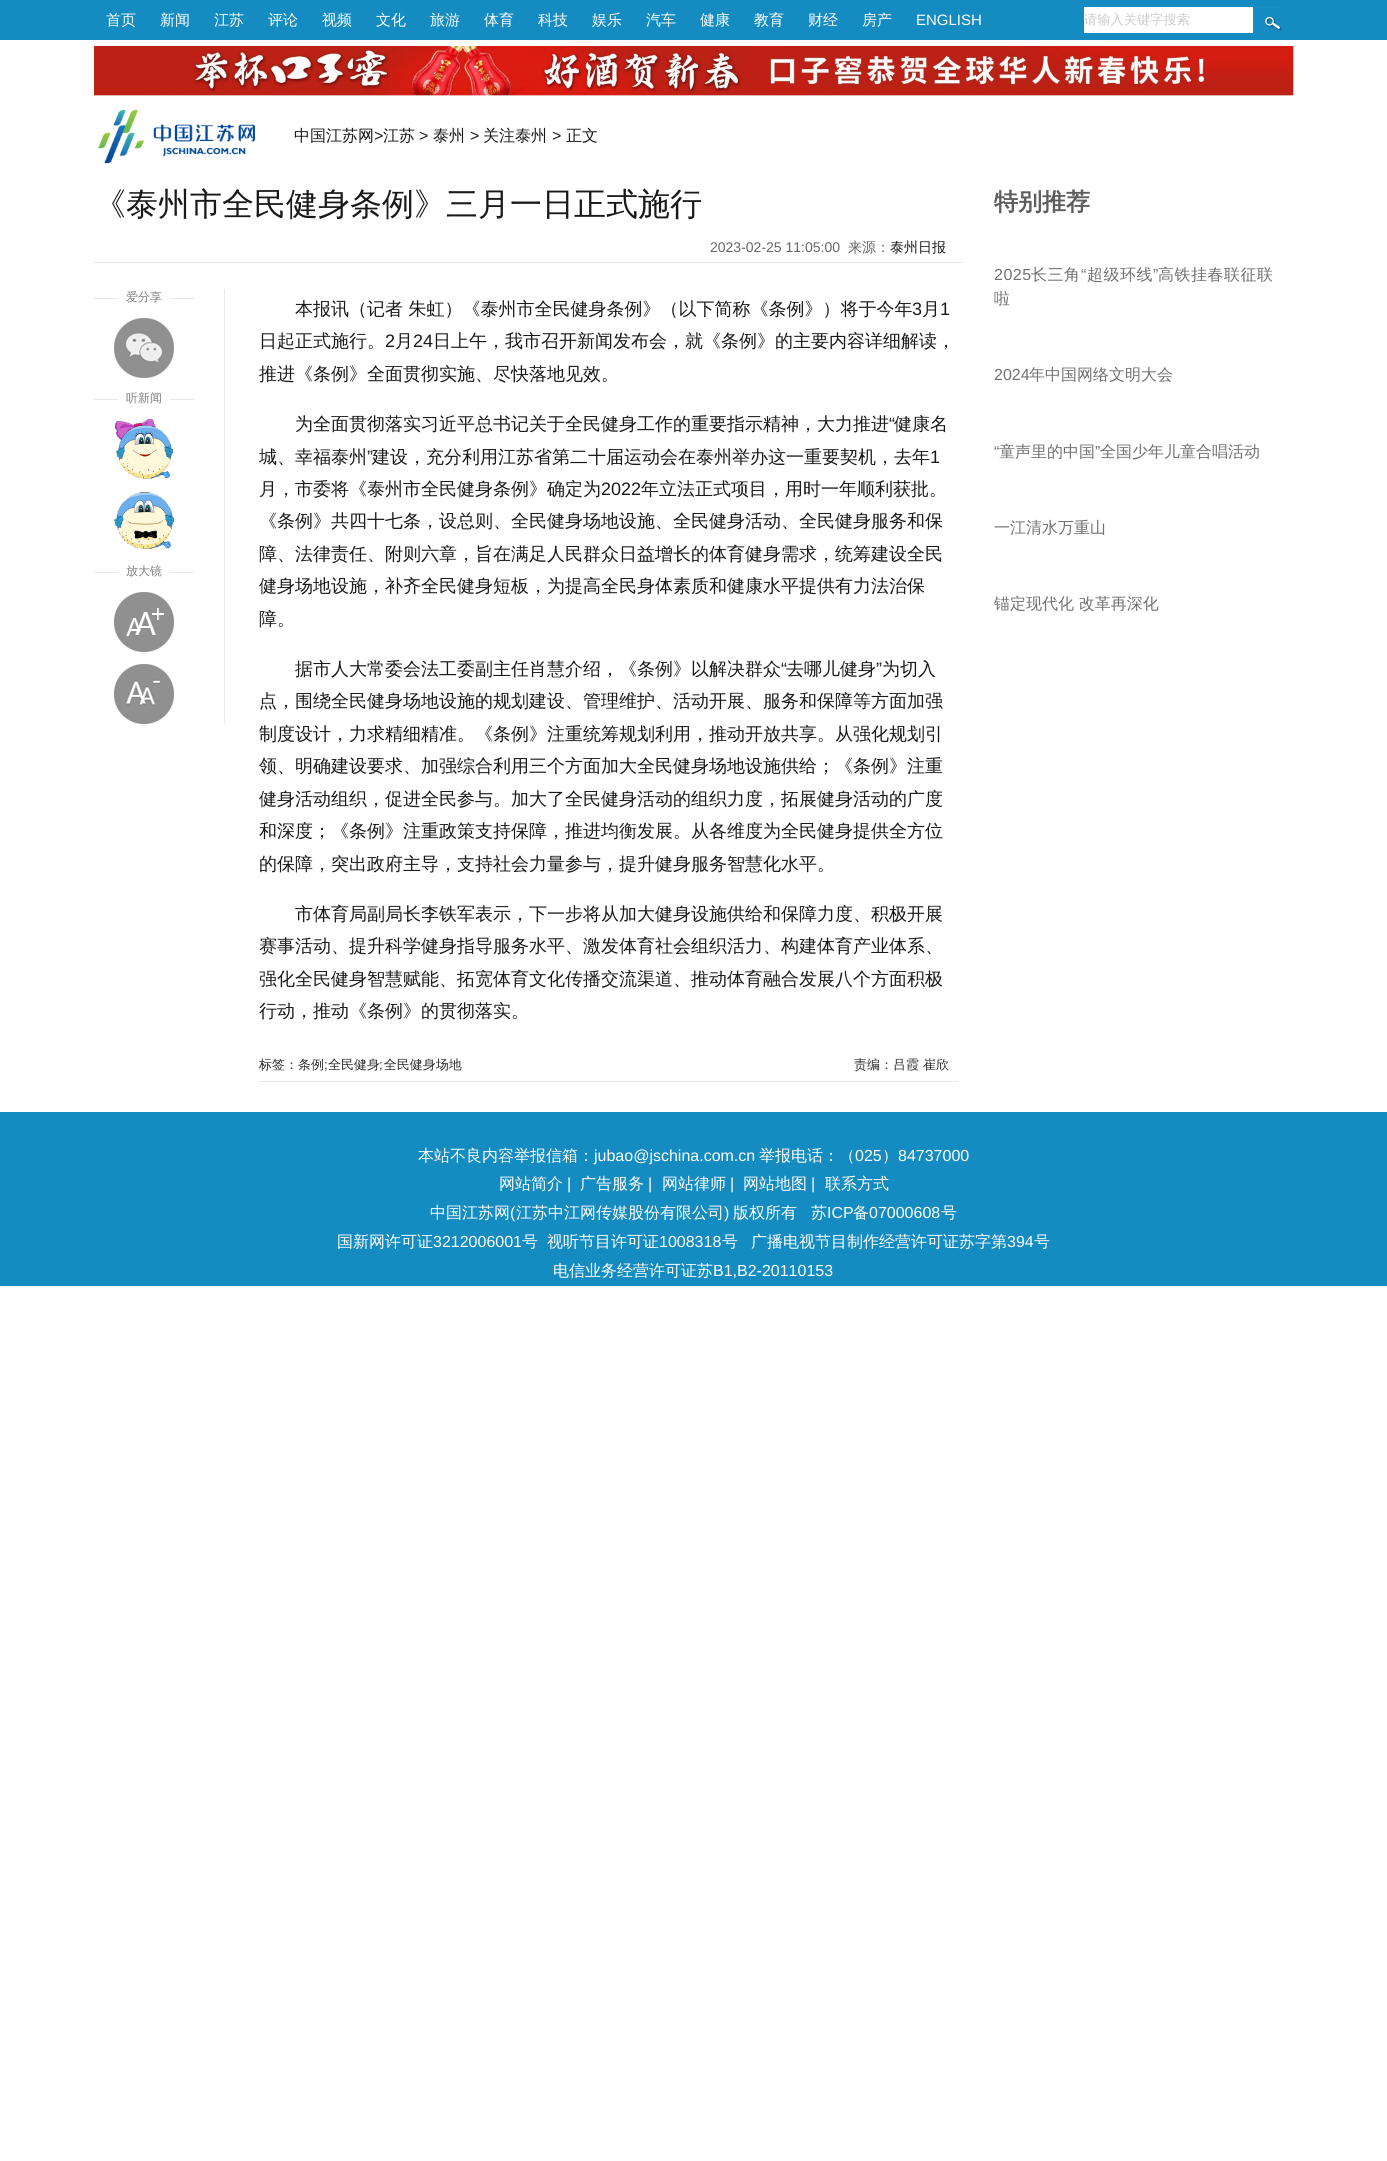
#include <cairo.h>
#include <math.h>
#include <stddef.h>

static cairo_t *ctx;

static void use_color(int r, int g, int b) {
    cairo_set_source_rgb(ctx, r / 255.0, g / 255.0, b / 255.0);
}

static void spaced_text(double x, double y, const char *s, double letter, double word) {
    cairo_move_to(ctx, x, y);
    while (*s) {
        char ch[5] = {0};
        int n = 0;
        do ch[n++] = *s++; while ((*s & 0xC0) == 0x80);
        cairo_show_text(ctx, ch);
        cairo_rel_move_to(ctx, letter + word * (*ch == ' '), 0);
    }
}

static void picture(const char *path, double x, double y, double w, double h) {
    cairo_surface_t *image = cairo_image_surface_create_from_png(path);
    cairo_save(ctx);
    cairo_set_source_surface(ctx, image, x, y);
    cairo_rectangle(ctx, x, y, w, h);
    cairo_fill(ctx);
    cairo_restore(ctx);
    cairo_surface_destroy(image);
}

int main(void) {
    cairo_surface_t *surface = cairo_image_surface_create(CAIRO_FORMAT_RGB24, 1387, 2161);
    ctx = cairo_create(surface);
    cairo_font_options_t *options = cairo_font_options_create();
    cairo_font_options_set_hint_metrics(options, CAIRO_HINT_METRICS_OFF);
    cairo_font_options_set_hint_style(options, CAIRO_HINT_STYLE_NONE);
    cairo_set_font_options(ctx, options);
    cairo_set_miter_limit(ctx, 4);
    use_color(255, 255, 255);
    cairo_paint(ctx);
    use_color(20, 140, 193);
    cairo_rectangle(ctx, 0, 0, 1387, 40);
    cairo_fill(ctx);
    cairo_select_font_face(ctx, "WenQuanYi Zen Hei Medium", CAIRO_FONT_SLANT_NORMAL, CAIRO_FONT_WEIGHT_NORMAL);
    cairo_set_font_size(ctx, 15);
    use_color(255, 255, 255);
    cairo_move_to(ctx, 106, 25);
    cairo_show_text(ctx, "首页");
    cairo_move_to(ctx, 160, 25);
    cairo_show_text(ctx, "新闻");
    cairo_move_to(ctx, 214, 25);
    cairo_show_text(ctx, "江苏");
    cairo_move_to(ctx, 268, 25);
    cairo_show_text(ctx, "评论");
    cairo_move_to(ctx, 322, 25);
    cairo_show_text(ctx, "视频");
    cairo_move_to(ctx, 376, 25);
    cairo_show_text(ctx, "文化");
    cairo_move_to(ctx, 430, 25);
    cairo_show_text(ctx, "旅游");
    cairo_move_to(ctx, 484, 25);
    cairo_show_text(ctx, "体育");
    cairo_move_to(ctx, 538, 25);
    cairo_show_text(ctx, "科技");
    cairo_move_to(ctx, 592, 25);
    cairo_show_text(ctx, "娱乐");
    cairo_move_to(ctx, 646, 25);
    cairo_show_text(ctx, "汽车");
    cairo_move_to(ctx, 700, 25);
    cairo_show_text(ctx, "健康");
    cairo_move_to(ctx, 754, 25);
    cairo_show_text(ctx, "教育");
    cairo_move_to(ctx, 808, 25);
    cairo_show_text(ctx, "财经");
    cairo_move_to(ctx, 862, 25);
    cairo_show_text(ctx, "房产");
    cairo_select_font_face(ctx, "Liberation Sans", CAIRO_FONT_SLANT_NORMAL, CAIRO_FONT_WEIGHT_NORMAL);
    cairo_move_to(ctx, 916, 25);
    cairo_show_text(ctx, "ENGLISH");
    cairo_rectangle(ctx, 1084, 7, 169, 26);
    cairo_fill(ctx);
    cairo_select_font_face(ctx, "WenQuanYi Zen Hei Medium", CAIRO_FONT_SLANT_NORMAL, CAIRO_FONT_WEIGHT_NORMAL);
    cairo_set_font_size(ctx, 13.25);
    use_color(204, 204, 204);
    cairo_move_to(ctx, 1084, 24);
    cairo_show_text(ctx, "请输入关键字搜索");
    picture("img1.png", 1253, 7, 30, 24);
    picture("img2.png", 94, 46, 1200, 50);
    picture("img3.png", 98, 110, 157, 54);
    cairo_set_font_size(ctx, 16);
    use_color(25, 25, 25);
    cairo_move_to(ctx, 294, 141);
    cairo_show_text(ctx, "中国江苏网");
    cairo_select_font_face(ctx, "Liberation Sans", CAIRO_FONT_SLANT_NORMAL, CAIRO_FONT_WEIGHT_NORMAL);
    cairo_move_to(ctx, 374, 141);
    cairo_show_text(ctx, ">");
    cairo_select_font_face(ctx, "WenQuanYi Zen Hei Medium", CAIRO_FONT_SLANT_NORMAL, CAIRO_FONT_WEIGHT_NORMAL);
    cairo_move_to(ctx, 383, 141);
    cairo_show_text(ctx, "江苏");
    cairo_select_font_face(ctx, "Liberation Sans", CAIRO_FONT_SLANT_NORMAL, CAIRO_FONT_WEIGHT_NORMAL);
    cairo_move_to(ctx, 419, 141);
    cairo_show_text(ctx, ">");
    cairo_select_font_face(ctx, "WenQuanYi Zen Hei Medium", CAIRO_FONT_SLANT_NORMAL, CAIRO_FONT_WEIGHT_NORMAL);
    cairo_move_to(ctx, 433, 141);
    cairo_show_text(ctx, "泰州");
    cairo_select_font_face(ctx, "Liberation Sans", CAIRO_FONT_SLANT_NORMAL, CAIRO_FONT_WEIGHT_NORMAL);
    cairo_move_to(ctx, 470, 141);
    cairo_show_text(ctx, ">");
    cairo_select_font_face(ctx, "WenQuanYi Zen Hei Medium", CAIRO_FONT_SLANT_NORMAL, CAIRO_FONT_WEIGHT_NORMAL);
    cairo_move_to(ctx, 483, 141);
    cairo_show_text(ctx, "关注泰州");
    cairo_select_font_face(ctx, "Liberation Sans", CAIRO_FONT_SLANT_NORMAL, CAIRO_FONT_WEIGHT_NORMAL);
    cairo_move_to(ctx, 552, 141);
    cairo_show_text(ctx, ">");
    cairo_select_font_face(ctx, "WenQuanYi Zen Hei Medium", CAIRO_FONT_SLANT_NORMAL, CAIRO_FONT_WEIGHT_NORMAL);
    cairo_move_to(ctx, 566, 141);
    cairo_show_text(ctx, "正文");
    cairo_set_font_size(ctx, 32);
    cairo_move_to(ctx, 94, 215);
    cairo_show_text(ctx, "《泰州市全民健身条例》三月一日正式施行");
    use_color(232, 232, 232);
    cairo_rectangle(ctx, 94, 262, 870, 1);
    cairo_fill(ctx);
    cairo_select_font_face(ctx, "Liberation Sans", CAIRO_FONT_SLANT_NORMAL, CAIRO_FONT_WEIGHT_NORMAL);
    cairo_set_font_size(ctx, 14);
    use_color(102, 102, 102);
    cairo_move_to(ctx, 710, 252);
    cairo_show_text(ctx, "2023-02-25 11:05:00");
    cairo_select_font_face(ctx, "WenQuanYi Zen Hei Medium", CAIRO_FONT_SLANT_NORMAL, CAIRO_FONT_WEIGHT_NORMAL);
    cairo_move_to(ctx, 848, 252);
    cairo_show_text(ctx, "来源：");
    use_color(25, 25, 25);
    cairo_move_to(ctx, 890, 252);
    cairo_show_text(ctx, "泰州日报");
    use_color(232, 232, 232);
    cairo_rectangle(ctx, 224, 289, 1, 435);
    cairo_fill(ctx);
    cairo_rectangle(ctx, 94, 298, 100, 1);
    cairo_fill(ctx);
    use_color(255, 255, 255);
    cairo_rectangle(ctx, 118, 298, 52, 1);
    cairo_fill(ctx);
    cairo_set_font_size(ctx, 12);
    use_color(128, 128, 128);
    cairo_move_to(ctx, 126, 301);
    cairo_show_text(ctx, "爱分享");
    picture("img4.png", 114, 318, 60, 60);
    use_color(232, 232, 232);
    cairo_rectangle(ctx, 94, 399, 100, 1);
    cairo_fill(ctx);
    use_color(255, 255, 255);
    cairo_rectangle(ctx, 118, 399, 52, 1);
    cairo_fill(ctx);
    use_color(128, 128, 128);
    cairo_move_to(ctx, 126, 402);
    cairo_show_text(ctx, "听新闻");
    picture("img5.png", 115, 419, 58, 60);
    picture("img6.png", 114, 492, 60, 57);
    use_color(232, 232, 232);
    cairo_rectangle(ctx, 94, 572, 100, 1);
    cairo_fill(ctx);
    use_color(255, 255, 255);
    cairo_rectangle(ctx, 118, 572, 52, 1);
    cairo_fill(ctx);
    use_color(128, 128, 128);
    cairo_move_to(ctx, 126, 575);
    cairo_show_text(ctx, "放大镜");
    picture("img7.png", 114, 592, 60, 60);
    picture("img8.png", 114, 664, 60, 60);
    cairo_set_font_size(ctx, 18);
    use_color(25, 25, 25);
    cairo_move_to(ctx, 295, 315);
    cairo_show_text(ctx, "本报讯（记者 朱虹）《泰州市全民健身条例》（以下简称《条例》）将于今年");
    cairo_select_font_face(ctx, "Liberation Sans", CAIRO_FONT_SLANT_NORMAL, CAIRO_FONT_WEIGHT_NORMAL);
    cairo_move_to(ctx, 912, 315);
    cairo_show_text(ctx, "3");
    cairo_select_font_face(ctx, "WenQuanYi Zen Hei Medium", CAIRO_FONT_SLANT_NORMAL, CAIRO_FONT_WEIGHT_NORMAL);
    cairo_move_to(ctx, 922, 315);
    cairo_show_text(ctx, "月");
    cairo_select_font_face(ctx, "Liberation Sans", CAIRO_FONT_SLANT_NORMAL, CAIRO_FONT_WEIGHT_NORMAL);
    cairo_move_to(ctx, 940, 315);
    cairo_show_text(ctx, "1");
    cairo_select_font_face(ctx, "WenQuanYi Zen Hei Medium", CAIRO_FONT_SLANT_NORMAL, CAIRO_FONT_WEIGHT_NORMAL);
    cairo_move_to(ctx, 259, 347);
    cairo_show_text(ctx, "日起正式施行。");
    cairo_select_font_face(ctx, "Liberation Sans", CAIRO_FONT_SLANT_NORMAL, CAIRO_FONT_WEIGHT_NORMAL);
    cairo_move_to(ctx, 385, 347);
    cairo_show_text(ctx, "2");
    cairo_select_font_face(ctx, "WenQuanYi Zen Hei Medium", CAIRO_FONT_SLANT_NORMAL, CAIRO_FONT_WEIGHT_NORMAL);
    cairo_move_to(ctx, 395, 347);
    cairo_show_text(ctx, "月");
    cairo_select_font_face(ctx, "Liberation Sans", CAIRO_FONT_SLANT_NORMAL, CAIRO_FONT_WEIGHT_NORMAL);
    cairo_move_to(ctx, 413, 347);
    cairo_show_text(ctx, "24");
    cairo_select_font_face(ctx, "WenQuanYi Zen Hei Medium", CAIRO_FONT_SLANT_NORMAL, CAIRO_FONT_WEIGHT_NORMAL);
    cairo_move_to(ctx, 433, 347);
    cairo_show_text(ctx, "日上午，我市召开新闻发布会，就《条例》的主要内容详细解读，");
    cairo_move_to(ctx, 259, 380);
    cairo_show_text(ctx, "推进《条例》全面贯彻实施、尽快落地见效。");
    cairo_move_to(ctx, 295, 430);
    cairo_show_text(ctx, "为全面贯彻落实习近平总书记关于全民健身工作的重要指示精神，大力推进");
    cairo_select_font_face(ctx, "Liberation Sans", CAIRO_FONT_SLANT_NORMAL, CAIRO_FONT_WEIGHT_NORMAL);
    cairo_move_to(ctx, 889, 430);
    cairo_show_text(ctx, "“");
    cairo_select_font_face(ctx, "WenQuanYi Zen Hei Medium", CAIRO_FONT_SLANT_NORMAL, CAIRO_FONT_WEIGHT_NORMAL);
    cairo_move_to(ctx, 894, 430);
    cairo_show_text(ctx, "健康名");
    cairo_move_to(ctx, 259, 463);
    cairo_show_text(ctx, "城、幸福泰州");
    cairo_select_font_face(ctx, "Liberation Sans", CAIRO_FONT_SLANT_NORMAL, CAIRO_FONT_WEIGHT_NORMAL);
    cairo_move_to(ctx, 367, 463);
    cairo_show_text(ctx, "”");
    cairo_select_font_face(ctx, "WenQuanYi Zen Hei Medium", CAIRO_FONT_SLANT_NORMAL, CAIRO_FONT_WEIGHT_NORMAL);
    cairo_move_to(ctx, 372, 463);
    cairo_show_text(ctx, "建设，充分利用江苏省第二十届运动会在泰州举办这一重要契机，去年");
    cairo_select_font_face(ctx, "Liberation Sans", CAIRO_FONT_SLANT_NORMAL, CAIRO_FONT_WEIGHT_NORMAL);
    cairo_move_to(ctx, 930, 463);
    cairo_show_text(ctx, "1");
    cairo_select_font_face(ctx, "WenQuanYi Zen Hei Medium", CAIRO_FONT_SLANT_NORMAL, CAIRO_FONT_WEIGHT_NORMAL);
    cairo_move_to(ctx, 259, 495);
    cairo_show_text(ctx, "月，市委将《泰州市全民健身条例》确定为");
    cairo_select_font_face(ctx, "Liberation Sans", CAIRO_FONT_SLANT_NORMAL, CAIRO_FONT_WEIGHT_NORMAL);
    cairo_move_to(ctx, 601, 495);
    cairo_show_text(ctx, "2022");
    cairo_select_font_face(ctx, "WenQuanYi Zen Hei Medium", CAIRO_FONT_SLANT_NORMAL, CAIRO_FONT_WEIGHT_NORMAL);
    cairo_move_to(ctx, 641, 495);
    cairo_show_text(ctx, "年立法正式项目，用时一年顺利获批。");
    cairo_move_to(ctx, 259, 527);
    cairo_show_text(ctx, "《条例》共四十七条，设总则、全民健身场地设施、全民健身活动、全民健身服务和保");
    cairo_move_to(ctx, 259, 560);
    cairo_show_text(ctx, "障、法律责任、附则六章，旨在满足人民群众日益增长的体育健身需求，统筹建设全民");
    cairo_move_to(ctx, 259, 592);
    cairo_show_text(ctx, "健身场地设施，补齐全民健身短板，为提高全民身体素质和健康水平提供有力法治保");
    cairo_move_to(ctx, 259, 625);
    cairo_show_text(ctx, "障。");
    cairo_move_to(ctx, 295, 675);
    cairo_show_text(ctx, "据市人大常委会法工委副主任肖慧介绍，《条例》以解决群众");
    cairo_select_font_face(ctx, "Liberation Sans", CAIRO_FONT_SLANT_NORMAL, CAIRO_FONT_WEIGHT_NORMAL);
    cairo_move_to(ctx, 781, 675);
    cairo_show_text(ctx, "“");
    cairo_select_font_face(ctx, "WenQuanYi Zen Hei Medium", CAIRO_FONT_SLANT_NORMAL, CAIRO_FONT_WEIGHT_NORMAL);
    cairo_move_to(ctx, 786, 675);
    cairo_show_text(ctx, "去哪儿健身");
    cairo_select_font_face(ctx, "Liberation Sans", CAIRO_FONT_SLANT_NORMAL, CAIRO_FONT_WEIGHT_NORMAL);
    cairo_move_to(ctx, 876, 675);
    cairo_show_text(ctx, "”");
    cairo_select_font_face(ctx, "WenQuanYi Zen Hei Medium", CAIRO_FONT_SLANT_NORMAL, CAIRO_FONT_WEIGHT_NORMAL);
    cairo_move_to(ctx, 882, 675);
    cairo_show_text(ctx, "为切入");
    cairo_move_to(ctx, 259, 707);
    cairo_show_text(ctx, "点，围绕全民健身场地设施的规划建设、管理维护、活动开展、服务和保障等方面加强");
    cairo_move_to(ctx, 259, 740);
    cairo_show_text(ctx, "制度设计，力求精细精准。《条例》注重统筹规划利用，推动开放共享。从强化规划引");
    cairo_move_to(ctx, 259, 772);
    cairo_show_text(ctx, "领、明确建设要求、加强综合利用三个方面加大全民健身场地设施供给；《条例》注重");
    cairo_move_to(ctx, 259, 805);
    cairo_show_text(ctx, "健身活动组织，促进全民参与。加大了全民健身活动的组织力度，拓展健身活动的广度");
    cairo_move_to(ctx, 259, 837);
    cairo_show_text(ctx, "和深度；《条例》注重政策支持保障，推进均衡发展。从各维度为全民健身提供全方位");
    cairo_move_to(ctx, 259, 870);
    cairo_show_text(ctx, "的保障，突出政府主导，支持社会力量参与，提升健身服务智慧化水平。");
    cairo_move_to(ctx, 295, 920);
    cairo_show_text(ctx, "市体育局副局长李铁军表示，下一步将从加大健身设施供给和保障力度、积极开展");
    cairo_move_to(ctx, 259, 952);
    cairo_show_text(ctx, "赛事活动、提升科学健身指导服务水平、激发体育社会组织活力、构建体育产业体系、");
    cairo_move_to(ctx, 259, 985);
    cairo_show_text(ctx, "强化全民健身智慧赋能、拓宽体育文化传播交流渠道、推动体育融合发展八个方面积极");
    cairo_move_to(ctx, 259, 1017);
    cairo_show_text(ctx, "行动，推动《条例》的贯彻落实。");
    use_color(232, 232, 232);
    cairo_rectangle(ctx, 259, 1081, 700, 1);
    cairo_fill(ctx);
    cairo_set_font_size(ctx, 13);
    use_color(44, 44, 44);
    cairo_move_to(ctx, 259, 1069);
    cairo_show_text(ctx, "标签：条例 全民健身 全民健身场地");
    cairo_select_font_face(ctx, "Liberation Sans", CAIRO_FONT_SLANT_NORMAL, CAIRO_FONT_WEIGHT_NORMAL);
    cairo_move_to(ctx, 324, 1069);
    cairo_show_text(ctx, ";");
    cairo_move_to(ctx, 379, 1069);
    cairo_show_text(ctx, ";");
    cairo_select_font_face(ctx, "WenQuanYi Zen Hei Medium", CAIRO_FONT_SLANT_NORMAL, CAIRO_FONT_WEIGHT_NORMAL);
    cairo_move_to(ctx, 854, 1069);
    cairo_show_text(ctx, "责编：吕霞 崔欣");
    cairo_select_font_face(ctx, "WenQuanYi Zen Hei", CAIRO_FONT_SLANT_NORMAL, CAIRO_FONT_WEIGHT_BOLD);
    cairo_set_font_size(ctx, 24);
    use_color(93, 93, 93);
    cairo_move_to(ctx, 994, 210);
    cairo_show_text(ctx, "特别推荐");
    cairo_select_font_face(ctx, "Liberation Sans", CAIRO_FONT_SLANT_NORMAL, CAIRO_FONT_WEIGHT_NORMAL);
    cairo_set_font_size(ctx, 16);
    use_color(112, 112, 112);
    spaced_text(994, 280, "2025", 0.5, 0);
    cairo_select_font_face(ctx, "WenQuanYi Zen Hei Medium", CAIRO_FONT_SLANT_NORMAL, CAIRO_FONT_WEIGHT_NORMAL);
    spaced_text(1031, 280, "长三角", 0.5, 0);
    cairo_select_font_face(ctx, "Liberation Sans", CAIRO_FONT_SLANT_NORMAL, CAIRO_FONT_WEIGHT_NORMAL);
    spaced_text(1081, 280, "“", 0.5, 0);
    cairo_select_font_face(ctx, "WenQuanYi Zen Hei Medium", CAIRO_FONT_SLANT_NORMAL, CAIRO_FONT_WEIGHT_NORMAL);
    spaced_text(1087, 280, "超级环线", 0.5, 0);
    cairo_select_font_face(ctx, "Liberation Sans", CAIRO_FONT_SLANT_NORMAL, CAIRO_FONT_WEIGHT_NORMAL);
    spaced_text(1153, 280, "”", 0.5, 0);
    cairo_select_font_face(ctx, "WenQuanYi Zen Hei Medium", CAIRO_FONT_SLANT_NORMAL, CAIRO_FONT_WEIGHT_NORMAL);
    spaced_text(1158, 280, "高铁挂春联征联", 0.5, 0);
    cairo_move_to(ctx, 994, 304);
    cairo_show_text(ctx, "啦");
    cairo_select_font_face(ctx, "Liberation Sans", CAIRO_FONT_SLANT_NORMAL, CAIRO_FONT_WEIGHT_NORMAL);
    cairo_move_to(ctx, 994, 380);
    cairo_show_text(ctx, "2024");
    cairo_select_font_face(ctx, "WenQuanYi Zen Hei Medium", CAIRO_FONT_SLANT_NORMAL, CAIRO_FONT_WEIGHT_NORMAL);
    cairo_move_to(ctx, 1029, 380);
    cairo_show_text(ctx, "年中国网络文明大会");
    cairo_select_font_face(ctx, "Liberation Sans", CAIRO_FONT_SLANT_NORMAL, CAIRO_FONT_WEIGHT_NORMAL);
    cairo_move_to(ctx, 994, 457);
    cairo_show_text(ctx, "“");
    cairo_select_font_face(ctx, "WenQuanYi Zen Hei Medium", CAIRO_FONT_SLANT_NORMAL, CAIRO_FONT_WEIGHT_NORMAL);
    cairo_move_to(ctx, 999, 457);
    cairo_show_text(ctx, "童声里的中国");
    cairo_select_font_face(ctx, "Liberation Sans", CAIRO_FONT_SLANT_NORMAL, CAIRO_FONT_WEIGHT_NORMAL);
    cairo_move_to(ctx, 1095, 457);
    cairo_show_text(ctx, "”");
    cairo_select_font_face(ctx, "WenQuanYi Zen Hei Medium", CAIRO_FONT_SLANT_NORMAL, CAIRO_FONT_WEIGHT_NORMAL);
    cairo_move_to(ctx, 1100, 457);
    cairo_show_text(ctx, "全国少年儿童合唱活动");
    cairo_move_to(ctx, 994, 533);
    cairo_show_text(ctx, "一江清水万重山");
    cairo_move_to(ctx, 994, 609);
    cairo_show_text(ctx, "锚定现代化 改革再深化");
    use_color(20, 140, 193);
    cairo_rectangle(ctx, 0, 1112, 1387, 174);
    cairo_fill(ctx);
    use_color(255, 255, 255);
    cairo_move_to(ctx, 418, 1161);
    cairo_show_text(ctx, "本站不良内容举报信箱：");
    cairo_select_font_face(ctx, "Liberation Sans", CAIRO_FONT_SLANT_NORMAL, CAIRO_FONT_WEIGHT_NORMAL);
    cairo_move_to(ctx, 594, 1161);
    cairo_show_text(ctx, "jubao@jschina.com.cn");
    cairo_select_font_face(ctx, "WenQuanYi Zen Hei Medium", CAIRO_FONT_SLANT_NORMAL, CAIRO_FONT_WEIGHT_NORMAL);
    cairo_move_to(ctx, 759, 1161);
    cairo_show_text(ctx, "举报电话：（");
    cairo_select_font_face(ctx, "Liberation Sans", CAIRO_FONT_SLANT_NORMAL, CAIRO_FONT_WEIGHT_NORMAL);
    cairo_move_to(ctx, 855, 1161);
    cairo_show_text(ctx, "025");
    cairo_select_font_face(ctx, "WenQuanYi Zen Hei Medium", CAIRO_FONT_SLANT_NORMAL, CAIRO_FONT_WEIGHT_NORMAL);
    cairo_move_to(ctx, 882, 1161);
    cairo_show_text(ctx, "）");
    cairo_select_font_face(ctx, "Liberation Sans", CAIRO_FONT_SLANT_NORMAL, CAIRO_FONT_WEIGHT_NORMAL);
    cairo_move_to(ctx, 898, 1161);
    cairo_show_text(ctx, "84737000");
    cairo_select_font_face(ctx, "WenQuanYi Zen Hei Medium", CAIRO_FONT_SLANT_NORMAL, CAIRO_FONT_WEIGHT_NORMAL);
    cairo_move_to(ctx, 499, 1189);
    cairo_show_text(ctx, "网站简介");
    cairo_select_font_face(ctx, "Liberation Sans", CAIRO_FONT_SLANT_NORMAL, CAIRO_FONT_WEIGHT_NORMAL);
    cairo_move_to(ctx, 567, 1189);
    cairo_show_text(ctx, "|");
    cairo_select_font_face(ctx, "WenQuanYi Zen Hei Medium", CAIRO_FONT_SLANT_NORMAL, CAIRO_FONT_WEIGHT_NORMAL);
    cairo_move_to(ctx, 580, 1189);
    cairo_show_text(ctx, "广告服务");
    cairo_select_font_face(ctx, "Liberation Sans", CAIRO_FONT_SLANT_NORMAL, CAIRO_FONT_WEIGHT_NORMAL);
    cairo_move_to(ctx, 648, 1189);
    cairo_show_text(ctx, "|");
    cairo_select_font_face(ctx, "WenQuanYi Zen Hei Medium", CAIRO_FONT_SLANT_NORMAL, CAIRO_FONT_WEIGHT_NORMAL);
    cairo_move_to(ctx, 662, 1189);
    cairo_show_text(ctx, "网站律师");
    cairo_select_font_face(ctx, "Liberation Sans", CAIRO_FONT_SLANT_NORMAL, CAIRO_FONT_WEIGHT_NORMAL);
    cairo_move_to(ctx, 730, 1189);
    cairo_show_text(ctx, "|");
    cairo_select_font_face(ctx, "WenQuanYi Zen Hei Medium", CAIRO_FONT_SLANT_NORMAL, CAIRO_FONT_WEIGHT_NORMAL);
    cairo_move_to(ctx, 743, 1189);
    cairo_show_text(ctx, "网站地图");
    cairo_select_font_face(ctx, "Liberation Sans", CAIRO_FONT_SLANT_NORMAL, CAIRO_FONT_WEIGHT_NORMAL);
    cairo_move_to(ctx, 811, 1189);
    cairo_show_text(ctx, "|");
    cairo_select_font_face(ctx, "WenQuanYi Zen Hei Medium", CAIRO_FONT_SLANT_NORMAL, CAIRO_FONT_WEIGHT_NORMAL);
    cairo_move_to(ctx, 825, 1189);
    cairo_show_text(ctx, "联系方式");
    cairo_move_to(ctx, 430, 1218);
    cairo_show_text(ctx, "中国江苏网");
    cairo_select_font_face(ctx, "Liberation Sans", CAIRO_FONT_SLANT_NORMAL, CAIRO_FONT_WEIGHT_NORMAL);
    cairo_move_to(ctx, 510, 1218);
    cairo_show_text(ctx, "(");
    cairo_select_font_face(ctx, "WenQuanYi Zen Hei Medium", CAIRO_FONT_SLANT_NORMAL, CAIRO_FONT_WEIGHT_NORMAL);
    cairo_move_to(ctx, 516, 1218);
    cairo_show_text(ctx, "江苏中江网传媒股份有限公司");
    cairo_select_font_face(ctx, "Liberation Sans", CAIRO_FONT_SLANT_NORMAL, CAIRO_FONT_WEIGHT_NORMAL);
    cairo_move_to(ctx, 724, 1218);
    cairo_show_text(ctx, ")");
    cairo_select_font_face(ctx, "WenQuanYi Zen Hei Medium", CAIRO_FONT_SLANT_NORMAL, CAIRO_FONT_WEIGHT_NORMAL);
    cairo_move_to(ctx, 733, 1218);
    cairo_show_text(ctx, "版权所有");
    cairo_move_to(ctx, 811, 1218);
    cairo_show_text(ctx, "苏");
    cairo_select_font_face(ctx, "Liberation Sans", CAIRO_FONT_SLANT_NORMAL, CAIRO_FONT_WEIGHT_NORMAL);
    cairo_move_to(ctx, 827, 1218);
    cairo_show_text(ctx, "ICP");
    cairo_select_font_face(ctx, "WenQuanYi Zen Hei Medium", CAIRO_FONT_SLANT_NORMAL, CAIRO_FONT_WEIGHT_NORMAL);
    cairo_move_to(ctx, 853, 1218);
    cairo_show_text(ctx, "备");
    cairo_select_font_face(ctx, "Liberation Sans", CAIRO_FONT_SLANT_NORMAL, CAIRO_FONT_WEIGHT_NORMAL);
    cairo_move_to(ctx, 869, 1218);
    cairo_show_text(ctx, "07000608");
    cairo_select_font_face(ctx, "WenQuanYi Zen Hei Medium", CAIRO_FONT_SLANT_NORMAL, CAIRO_FONT_WEIGHT_NORMAL);
    cairo_move_to(ctx, 941, 1218);
    cairo_show_text(ctx, "号");
    cairo_move_to(ctx, 337, 1247);
    cairo_show_text(ctx, "国新网许可证");
    cairo_select_font_face(ctx, "Liberation Sans", CAIRO_FONT_SLANT_NORMAL, CAIRO_FONT_WEIGHT_NORMAL);
    cairo_move_to(ctx, 433, 1247);
    cairo_show_text(ctx, "3212006001");
    cairo_select_font_face(ctx, "WenQuanYi Zen Hei Medium", CAIRO_FONT_SLANT_NORMAL, CAIRO_FONT_WEIGHT_NORMAL);
    cairo_move_to(ctx, 522, 1247);
    cairo_show_text(ctx, "号");
    cairo_move_to(ctx, 547, 1247);
    cairo_show_text(ctx, "视听节目许可证");
    cairo_select_font_face(ctx, "Liberation Sans", CAIRO_FONT_SLANT_NORMAL, CAIRO_FONT_WEIGHT_NORMAL);
    cairo_move_to(ctx, 659, 1247);
    cairo_show_text(ctx, "1008318");
    cairo_select_font_face(ctx, "WenQuanYi Zen Hei Medium", CAIRO_FONT_SLANT_NORMAL, CAIRO_FONT_WEIGHT_NORMAL);
    cairo_move_to(ctx, 722, 1247);
    cairo_show_text(ctx, "号");
    cairo_move_to(ctx, 751, 1247);
    cairo_show_text(ctx, "广播电视节目制作经营许可证苏字第");
    cairo_select_font_face(ctx, "Liberation Sans", CAIRO_FONT_SLANT_NORMAL, CAIRO_FONT_WEIGHT_NORMAL);
    cairo_move_to(ctx, 1007, 1247);
    cairo_show_text(ctx, "394");
    cairo_select_font_face(ctx, "WenQuanYi Zen Hei Medium", CAIRO_FONT_SLANT_NORMAL, CAIRO_FONT_WEIGHT_NORMAL);
    cairo_move_to(ctx, 1034, 1247);
    cairo_show_text(ctx, "号");
    cairo_move_to(ctx, 553, 1276);
    cairo_show_text(ctx, "电信业务经营许可证苏");
    cairo_select_font_face(ctx, "Liberation Sans", CAIRO_FONT_SLANT_NORMAL, CAIRO_FONT_WEIGHT_NORMAL);
    cairo_move_to(ctx, 713, 1276);
    cairo_show_text(ctx, "B1,B2-20110153");
    cairo_surface_write_to_png(surface, "result.png");
    cairo_font_options_destroy(options);
    cairo_destroy(ctx);
    cairo_surface_destroy(surface);
    return 0;
}
